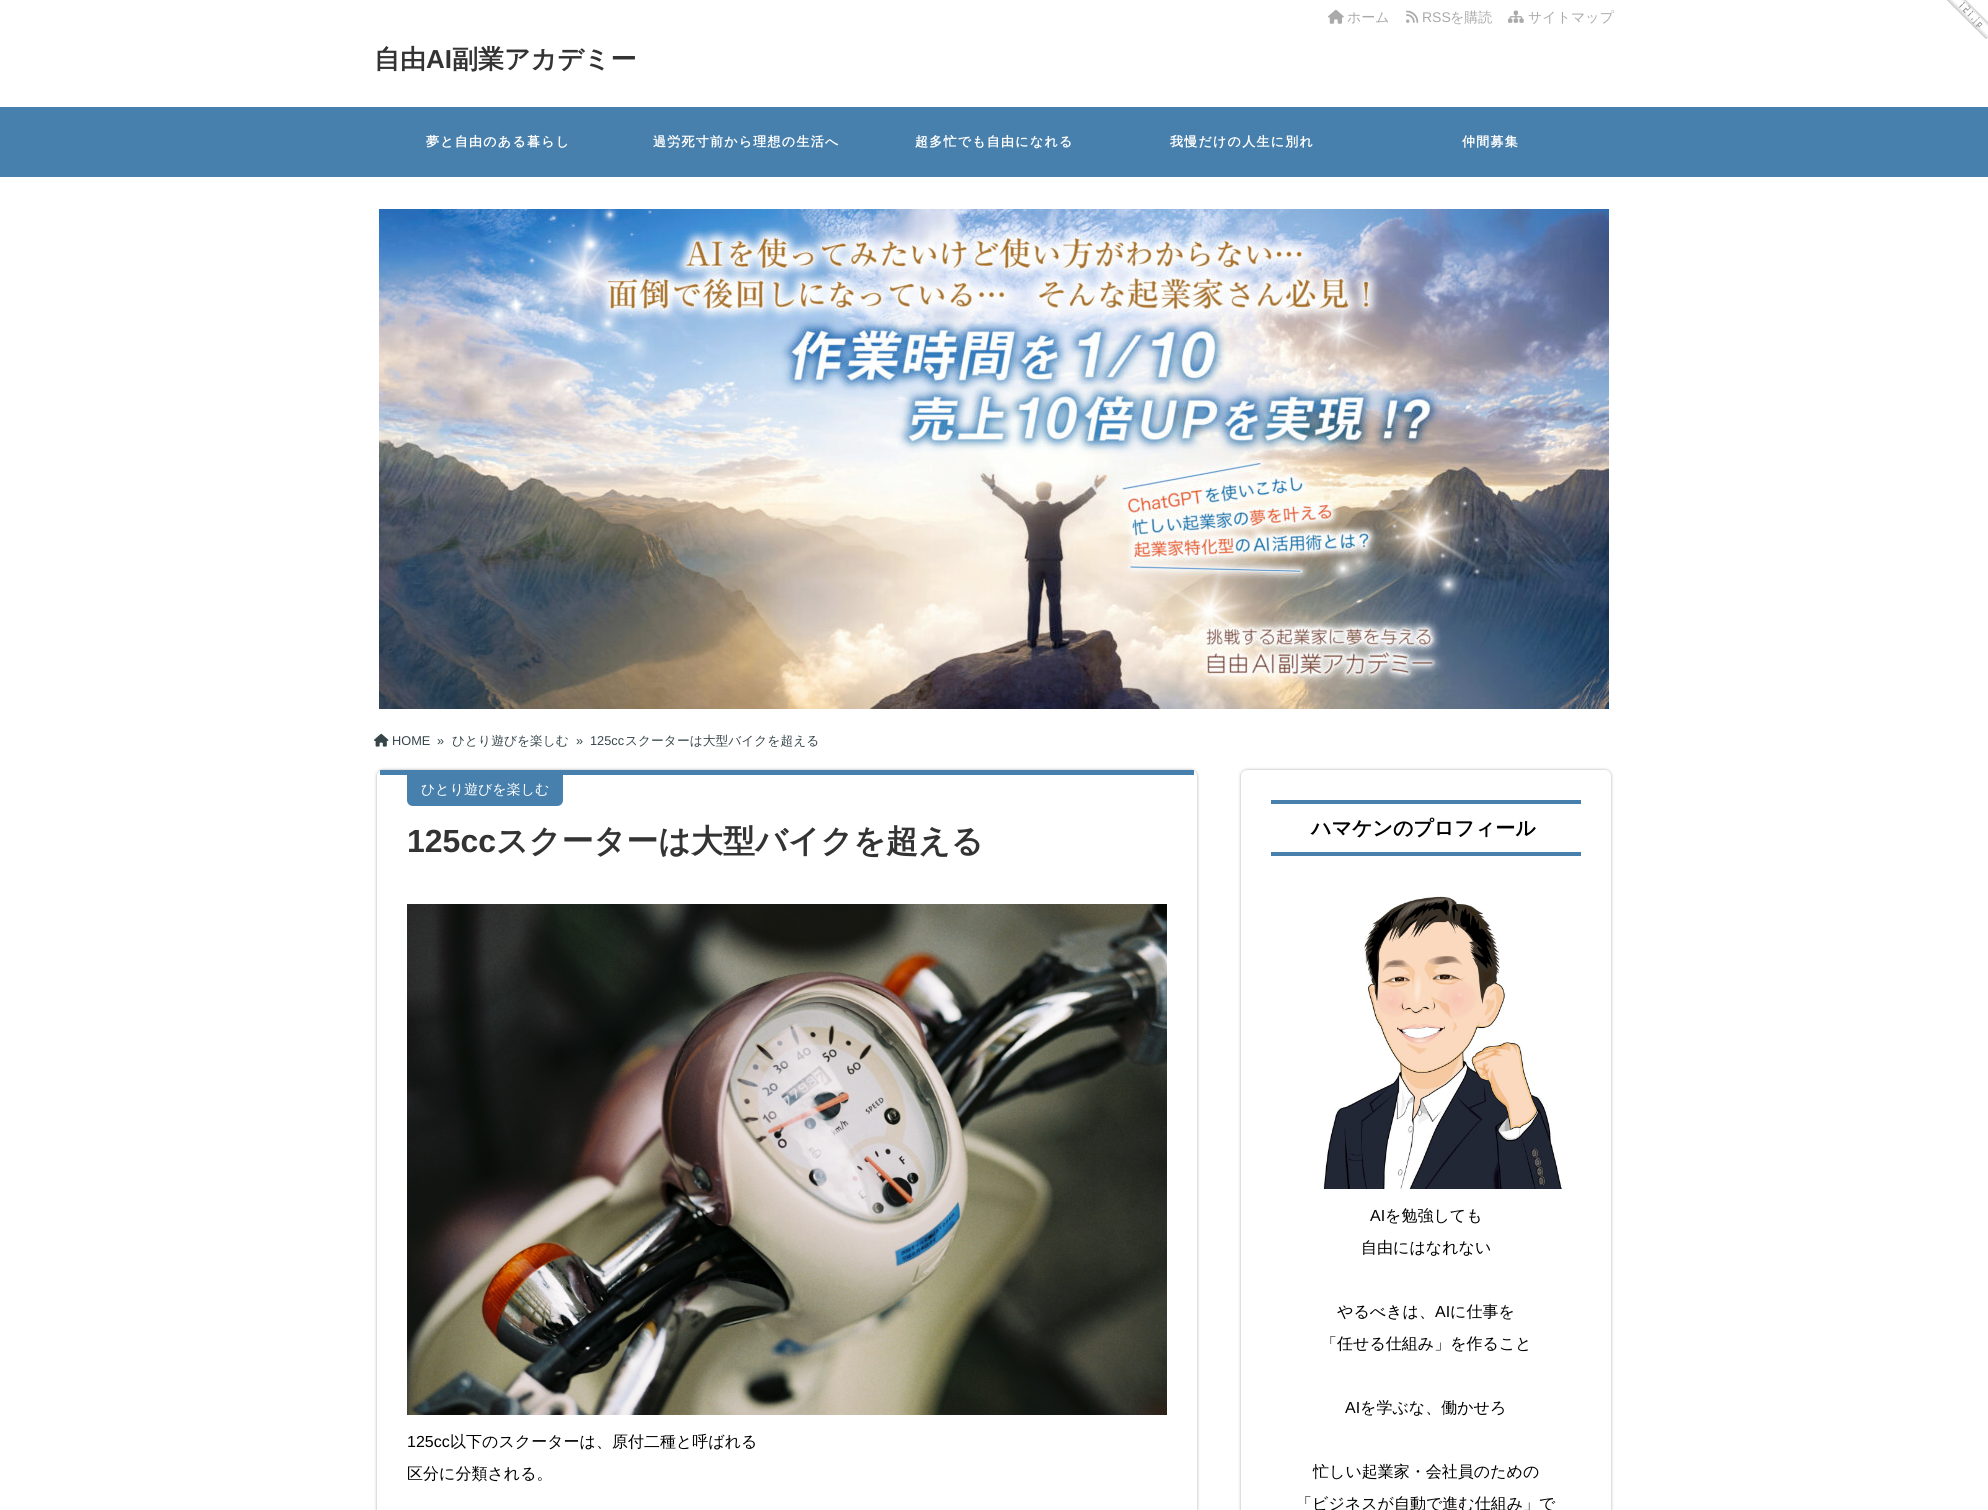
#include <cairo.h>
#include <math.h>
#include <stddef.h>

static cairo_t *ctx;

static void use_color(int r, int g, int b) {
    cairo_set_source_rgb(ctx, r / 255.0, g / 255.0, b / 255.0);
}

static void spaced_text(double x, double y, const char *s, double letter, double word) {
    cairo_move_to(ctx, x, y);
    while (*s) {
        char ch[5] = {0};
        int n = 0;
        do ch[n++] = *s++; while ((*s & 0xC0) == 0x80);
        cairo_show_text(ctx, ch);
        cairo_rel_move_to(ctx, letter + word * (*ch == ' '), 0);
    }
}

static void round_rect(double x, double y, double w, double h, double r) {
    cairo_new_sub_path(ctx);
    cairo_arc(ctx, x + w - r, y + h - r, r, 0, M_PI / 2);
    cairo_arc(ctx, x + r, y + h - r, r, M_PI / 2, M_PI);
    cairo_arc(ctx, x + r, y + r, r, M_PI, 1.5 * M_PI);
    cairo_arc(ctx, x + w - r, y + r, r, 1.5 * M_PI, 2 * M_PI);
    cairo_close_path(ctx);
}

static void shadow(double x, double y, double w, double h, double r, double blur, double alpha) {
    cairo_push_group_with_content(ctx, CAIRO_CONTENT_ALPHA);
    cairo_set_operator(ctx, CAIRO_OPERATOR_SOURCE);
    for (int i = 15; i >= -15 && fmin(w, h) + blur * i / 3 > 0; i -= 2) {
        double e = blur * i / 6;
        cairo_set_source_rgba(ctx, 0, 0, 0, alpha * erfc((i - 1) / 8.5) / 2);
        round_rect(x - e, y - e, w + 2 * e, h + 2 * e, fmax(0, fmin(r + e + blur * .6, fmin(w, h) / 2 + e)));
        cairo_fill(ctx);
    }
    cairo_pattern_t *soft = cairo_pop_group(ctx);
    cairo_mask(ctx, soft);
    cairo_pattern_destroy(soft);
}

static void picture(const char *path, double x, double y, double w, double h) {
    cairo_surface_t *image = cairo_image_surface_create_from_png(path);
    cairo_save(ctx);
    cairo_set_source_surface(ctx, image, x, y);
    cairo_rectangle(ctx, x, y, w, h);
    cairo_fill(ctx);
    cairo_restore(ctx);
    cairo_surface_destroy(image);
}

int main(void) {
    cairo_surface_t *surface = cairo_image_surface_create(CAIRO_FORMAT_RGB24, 1988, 1510);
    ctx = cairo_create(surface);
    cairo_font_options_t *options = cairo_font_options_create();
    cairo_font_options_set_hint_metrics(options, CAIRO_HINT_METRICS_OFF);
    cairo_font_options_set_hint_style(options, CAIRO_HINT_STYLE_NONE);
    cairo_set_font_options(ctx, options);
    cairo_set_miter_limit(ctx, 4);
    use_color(255, 255, 255);
    cairo_paint(ctx);
    picture("img1.png", 1328, 9, 16, 15);
    cairo_select_font_face(ctx, "WenQuanYi Zen Hei Medium", CAIRO_FONT_SLANT_NORMAL, CAIRO_FONT_WEIGHT_NORMAL);
    cairo_set_font_size(ctx, 14);
    use_color(170, 170, 170);
    cairo_move_to(ctx, 1347, 22);
    cairo_show_text(ctx, "ホーム");
    picture("img2.png", 1406, 10, 13, 13);
    cairo_select_font_face(ctx, "Liberation Sans", CAIRO_FONT_SLANT_NORMAL, CAIRO_FONT_WEIGHT_NORMAL);
    cairo_move_to(ctx, 1422, 22);
    cairo_show_text(ctx, "RSS");
    cairo_select_font_face(ctx, "WenQuanYi Zen Hei Medium", CAIRO_FONT_SLANT_NORMAL, CAIRO_FONT_WEIGHT_NORMAL);
    cairo_move_to(ctx, 1450, 22);
    cairo_show_text(ctx, "を購読");
    picture("img3.png", 1508, 10, 16, 13);
    cairo_move_to(ctx, 1528, 22);
    cairo_show_text(ctx, "サイトマップ");
    cairo_select_font_face(ctx, "WenQuanYi Zen Hei", CAIRO_FONT_SLANT_NORMAL, CAIRO_FONT_WEIGHT_BOLD);
    cairo_set_font_size(ctx, 26);
    use_color(51, 51, 51);
    cairo_move_to(ctx, 374, 68);
    cairo_show_text(ctx, "自由");
    cairo_select_font_face(ctx, "Liberation Sans", CAIRO_FONT_SLANT_NORMAL, CAIRO_FONT_WEIGHT_BOLD);
    cairo_move_to(ctx, 426, 68);
    cairo_show_text(ctx, "AI");
    cairo_select_font_face(ctx, "WenQuanYi Zen Hei", CAIRO_FONT_SLANT_NORMAL, CAIRO_FONT_WEIGHT_BOLD);
    cairo_move_to(ctx, 452, 68);
    cairo_show_text(ctx, "副業アカデミー");
    use_color(72, 128, 173);
    cairo_rectangle(ctx, 0, 107, 1988, 70);
    cairo_fill(ctx);
    cairo_set_font_size(ctx, 13);
    use_color(255, 255, 255);
    spaced_text(426, 146, "夢と自由のある暮らし", 1.25, 0);
    spaced_text(653, 146, "過労死寸前から理想の生活へ", 1.25, 0);
    spaced_text(915, 146, "超多忙でも自由になれる", 1.25, 0);
    spaced_text(1170, 146, "我慢だけの人生に別れ", 1.25, 0);
    spaced_text(1462, 146, "仲間募集", 1.25, 0);
    picture("img4.png", 379, 209, 1230, 500);
    picture("img5.png", 374, 733, 15, 14);
    cairo_select_font_face(ctx, "Liberation Sans", CAIRO_FONT_SLANT_NORMAL, CAIRO_FONT_WEIGHT_NORMAL);
    cairo_set_font_size(ctx, 12.75);
    use_color(54, 69, 73);
    cairo_move_to(ctx, 392, 745);
    cairo_show_text(ctx, "HOME");
    cairo_move_to(ctx, 437, 745);
    cairo_show_text(ctx, "»");
    cairo_select_font_face(ctx, "WenQuanYi Zen Hei Medium", CAIRO_FONT_SLANT_NORMAL, CAIRO_FONT_WEIGHT_NORMAL);
    cairo_move_to(ctx, 452, 745);
    cairo_show_text(ctx, "ひとり遊びを楽しむ");
    cairo_select_font_face(ctx, "Liberation Sans", CAIRO_FONT_SLANT_NORMAL, CAIRO_FONT_WEIGHT_NORMAL);
    cairo_move_to(ctx, 576, 745);
    cairo_show_text(ctx, "»");
    cairo_move_to(ctx, 590, 745);
    cairo_show_text(ctx, "125cc");
    cairo_select_font_face(ctx, "WenQuanYi Zen Hei Medium", CAIRO_FONT_SLANT_NORMAL, CAIRO_FONT_WEIGHT_NORMAL);
    cairo_move_to(ctx, 625, 745);
    cairo_show_text(ctx, "スクーターは大型バイクを超える");
    use_color(170, 170, 170);
    shadow(377, 770, 820, 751, 6, 1.5, 1);
    use_color(255, 255, 255);
    round_rect(377, 770, 820, 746, 6);
    cairo_fill(ctx);
    use_color(72, 128, 173);
    cairo_rectangle(ctx, 380, 770, 814, 5);
    cairo_fill(ctx);
    cairo_new_path(ctx);
    cairo_move_to(ctx, 407, 775);
    cairo_line_to(ctx, 563, 775);
    cairo_line_to(ctx, 563, 800);
    cairo_curve_to(ctx, 563, 803.5, 560.5, 806, 557, 806);
    cairo_line_to(ctx, 413, 806);
    cairo_curve_to(ctx, 409.5, 806, 407, 803.5, 407, 800);
    cairo_close_path(ctx);
    cairo_fill(ctx);
    cairo_set_font_size(ctx, 14);
    use_color(255, 255, 255);
    cairo_move_to(ctx, 421, 794);
    cairo_show_text(ctx, "ひとり遊びを楽しむ");
    cairo_select_font_face(ctx, "Liberation Sans", CAIRO_FONT_SLANT_NORMAL, CAIRO_FONT_WEIGHT_BOLD);
    cairo_set_font_size(ctx, 32);
    use_color(51, 51, 51);
    cairo_move_to(ctx, 407, 852);
    cairo_show_text(ctx, "125cc");
    cairo_select_font_face(ctx, "WenQuanYi Zen Hei", CAIRO_FONT_SLANT_NORMAL, CAIRO_FONT_WEIGHT_BOLD);
    cairo_move_to(ctx, 496, 852);
    cairo_show_text(ctx, "スクーターは大型バイクを超える");
    picture("img6.png", 407, 904, 760, 511);
    cairo_select_font_face(ctx, "Liberation Sans", CAIRO_FONT_SLANT_NORMAL, CAIRO_FONT_WEIGHT_NORMAL);
    cairo_set_font_size(ctx, 16);
    use_color(0, 0, 0);
    cairo_move_to(ctx, 407, 1447);
    cairo_show_text(ctx, "125cc");
    cairo_select_font_face(ctx, "WenQuanYi Zen Hei Medium", CAIRO_FONT_SLANT_NORMAL, CAIRO_FONT_WEIGHT_NORMAL);
    cairo_move_to(ctx, 450, 1447);
    cairo_show_text(ctx, "以下のスクーターは、原付二種と呼ばれる");
    cairo_move_to(ctx, 407, 1479);
    cairo_show_text(ctx, "区分に分類される。");
    use_color(170, 170, 170);
    shadow(1241, 770, 370, 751, 6, 1.5, 1);
    use_color(255, 255, 255);
    round_rect(1241, 770, 370, 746, 6);
    cairo_fill(ctx);
    use_color(72, 128, 173);
    cairo_rectangle(ctx, 1271, 800, 310, 4);
    cairo_fill(ctx);
    cairo_rectangle(ctx, 1271, 852, 310, 4);
    cairo_fill(ctx);
    cairo_select_font_face(ctx, "WenQuanYi Zen Hei", CAIRO_FONT_SLANT_NORMAL, CAIRO_FONT_WEIGHT_BOLD);
    cairo_set_font_size(ctx, 20);
    use_color(0, 0, 0);
    cairo_move_to(ctx, 1311, 835);
    cairo_show_text(ctx, "ハマケンのプロフィール");
    picture("img7.png", 1323, 896, 239, 293);
    cairo_select_font_face(ctx, "Liberation Sans", CAIRO_FONT_SLANT_NORMAL, CAIRO_FONT_WEIGHT_NORMAL);
    cairo_set_font_size(ctx, 16);
    cairo_move_to(ctx, 1370, 1221);
    cairo_show_text(ctx, "AI");
    cairo_select_font_face(ctx, "WenQuanYi Zen Hei Medium", CAIRO_FONT_SLANT_NORMAL, CAIRO_FONT_WEIGHT_NORMAL);
    cairo_move_to(ctx, 1385, 1221);
    cairo_show_text(ctx, "を勉強しても");
    cairo_move_to(ctx, 1361, 1253);
    cairo_show_text(ctx, "自由にはなれない");
    cairo_move_to(ctx, 1337, 1317);
    cairo_show_text(ctx, "やるべきは、");
    cairo_select_font_face(ctx, "Liberation Sans", CAIRO_FONT_SLANT_NORMAL, CAIRO_FONT_WEIGHT_NORMAL);
    cairo_move_to(ctx, 1435, 1317);
    cairo_show_text(ctx, "AI");
    cairo_select_font_face(ctx, "WenQuanYi Zen Hei Medium", CAIRO_FONT_SLANT_NORMAL, CAIRO_FONT_WEIGHT_NORMAL);
    cairo_move_to(ctx, 1450, 1317);
    cairo_show_text(ctx, "に仕事を");
    cairo_move_to(ctx, 1321, 1349);
    cairo_show_text(ctx, "「任せる仕組み」を作ること");
    cairo_select_font_face(ctx, "Liberation Sans", CAIRO_FONT_SLANT_NORMAL, CAIRO_FONT_WEIGHT_NORMAL);
    cairo_move_to(ctx, 1345, 1413);
    cairo_show_text(ctx, "AI");
    cairo_select_font_face(ctx, "WenQuanYi Zen Hei Medium", CAIRO_FONT_SLANT_NORMAL, CAIRO_FONT_WEIGHT_NORMAL);
    cairo_move_to(ctx, 1360, 1413);
    cairo_show_text(ctx, "を学ぶな、働かせろ");
    cairo_move_to(ctx, 1313, 1477);
    cairo_show_text(ctx, "忙しい起業家・会社員のための");
    cairo_move_to(ctx, 1296, 1509);
    cairo_show_text(ctx, "「ビジネスが自動で進む仕組み」で");
    picture("img8.png", 1947, 0, 41, 39);
    cairo_surface_write_to_png(surface, "result.png");
    cairo_font_options_destroy(options);
    cairo_destroy(ctx);
    cairo_surface_destroy(surface);
    return 0;
}
